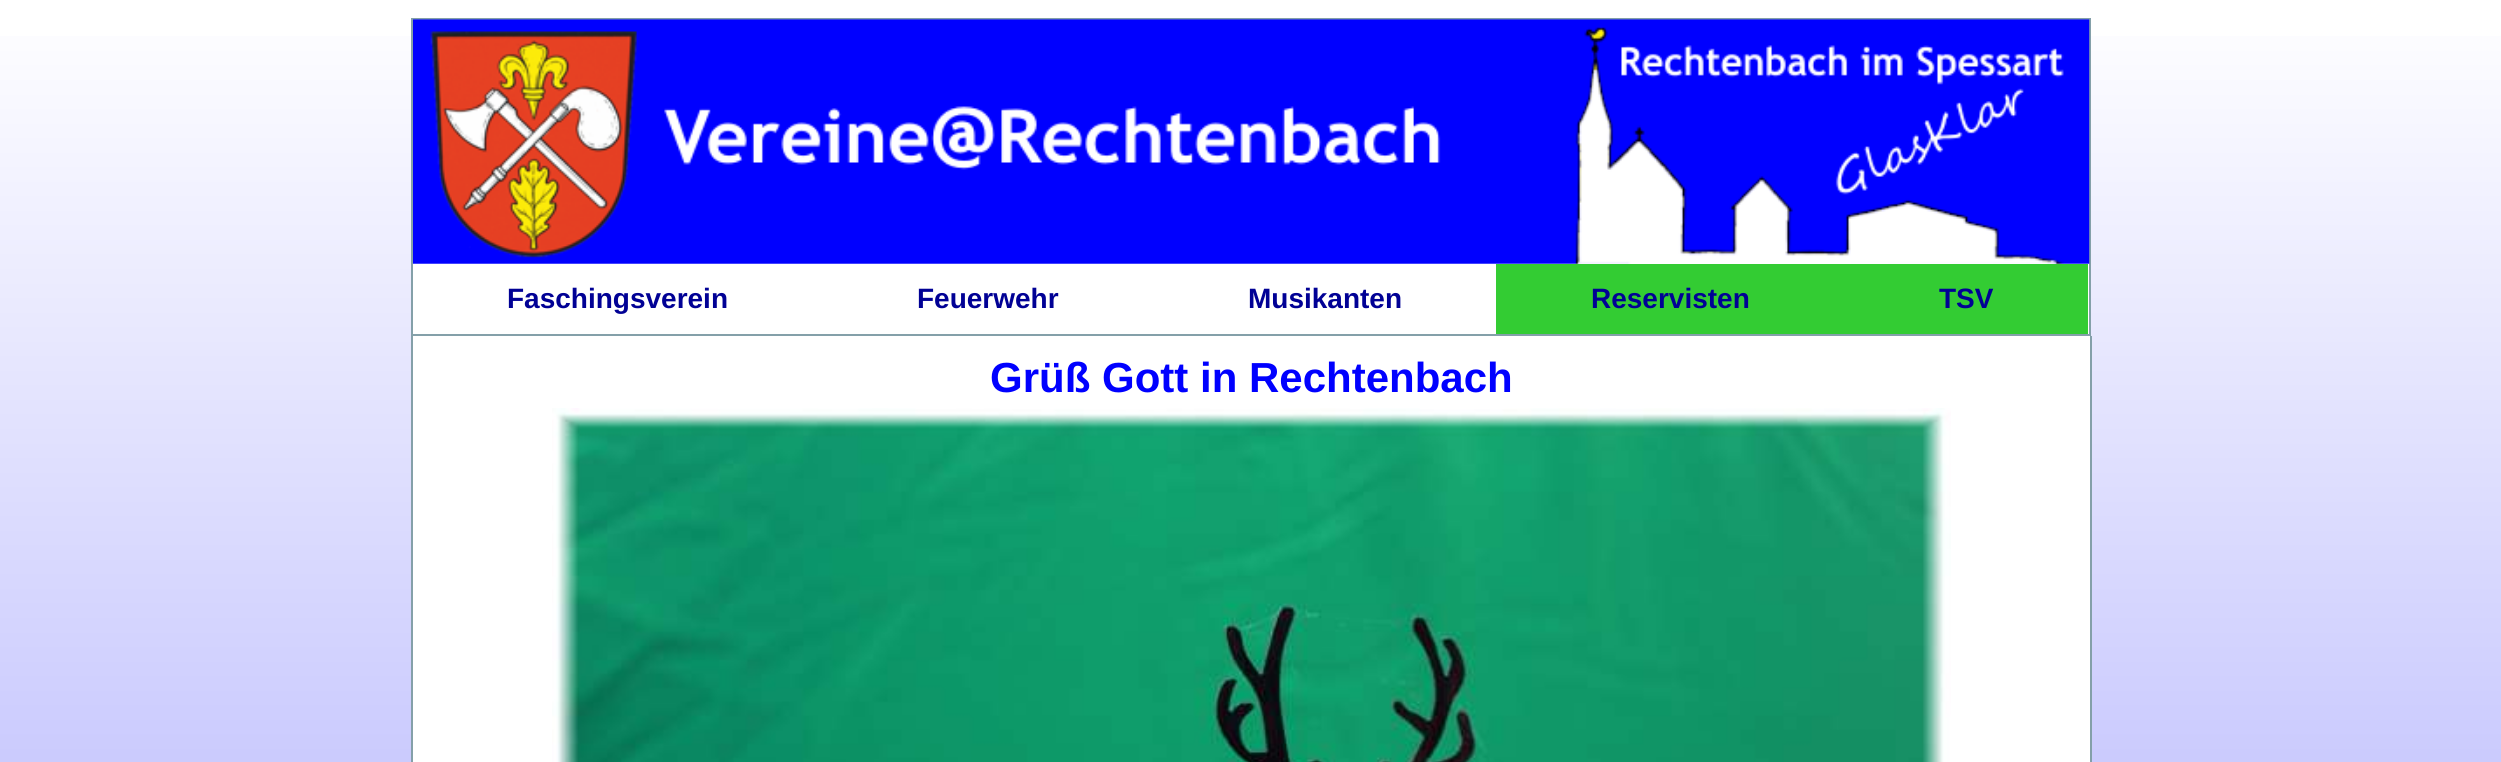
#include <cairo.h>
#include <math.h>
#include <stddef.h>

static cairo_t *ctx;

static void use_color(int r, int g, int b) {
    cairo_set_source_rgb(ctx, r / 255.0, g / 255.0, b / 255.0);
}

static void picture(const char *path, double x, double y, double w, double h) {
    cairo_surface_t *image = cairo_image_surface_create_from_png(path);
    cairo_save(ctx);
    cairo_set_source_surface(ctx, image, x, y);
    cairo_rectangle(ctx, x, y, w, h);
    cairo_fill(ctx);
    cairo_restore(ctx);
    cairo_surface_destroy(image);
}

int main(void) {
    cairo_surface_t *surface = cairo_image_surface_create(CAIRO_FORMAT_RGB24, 2501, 762);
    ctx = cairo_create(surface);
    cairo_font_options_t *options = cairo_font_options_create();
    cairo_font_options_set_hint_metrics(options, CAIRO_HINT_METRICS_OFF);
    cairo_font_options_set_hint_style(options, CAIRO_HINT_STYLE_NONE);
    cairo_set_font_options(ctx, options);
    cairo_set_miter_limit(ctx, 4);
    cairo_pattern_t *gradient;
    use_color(255, 255, 255);
    cairo_paint(ctx);
    gradient = cairo_pattern_create_linear(1251, 0, 1251, 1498);
    cairo_pattern_add_color_stop_rgba(gradient, 0, 1, 1, 1, 1);
    cairo_pattern_add_color_stop_rgba(gradient, 1, 0.596, 0.596, 0.988, 1);
    cairo_set_source(ctx, gradient);
    cairo_pattern_destroy(gradient);
    cairo_rectangle(ctx, 0, 36, 2501, 726);
    cairo_fill(ctx);
    use_color(255, 255, 255);
    cairo_rectangle(ctx, 413, 263, 1676, 71);
    cairo_fill(ctx);
    cairo_rectangle(ctx, 412, 19, 1678, 316);
    use_color(132, 160, 169);
    cairo_stroke(ctx);
    picture("img1.png", 413, 19, 1677, 245);
    cairo_select_font_face(ctx, "Liberation Sans", CAIRO_FONT_SLANT_NORMAL, CAIRO_FONT_WEIGHT_BOLD);
    cairo_set_font_size(ctx, 28);
    use_color(1, 1, 149);
    cairo_move_to(ctx, 507, 308);
    cairo_show_text(ctx, "Faschingsverein");
    cairo_move_to(ctx, 917, 308);
    cairo_show_text(ctx, "Feuerwehr");
    cairo_move_to(ctx, 1248, 308);
    cairo_show_text(ctx, "Musikanten");
    use_color(51, 204, 51);
    cairo_rectangle(ctx, 1496, 264, 592, 70);
    cairo_fill(ctx);
    use_color(1, 1, 149);
    cairo_move_to(ctx, 1591, 308);
    cairo_show_text(ctx, "Reservisten");
    cairo_move_to(ctx, 1939, 308);
    cairo_show_text(ctx, "TSV");
    use_color(255, 255, 255);
    cairo_rectangle(ctx, 413, 336, 1677, 426);
    cairo_fill(ctx);
    use_color(132, 160, 169);
    cairo_rectangle(ctx, 2090, 336, 2, 426);
    cairo_fill(ctx);
    cairo_rectangle(ctx, 411, 336, 2, 426);
    cairo_fill(ctx);
    cairo_set_font_size(ctx, 42);
    use_color(0, 0, 255);
    cairo_move_to(ctx, 990, 392);
    cairo_show_text(ctx, "Grüß Gott in Rechtenbach");
    picture("img2.png", 552, 408, 1399, 354);
    cairo_surface_write_to_png(surface, "result.png");
    cairo_font_options_destroy(options);
    cairo_destroy(ctx);
    cairo_surface_destroy(surface);
    return 0;
}
